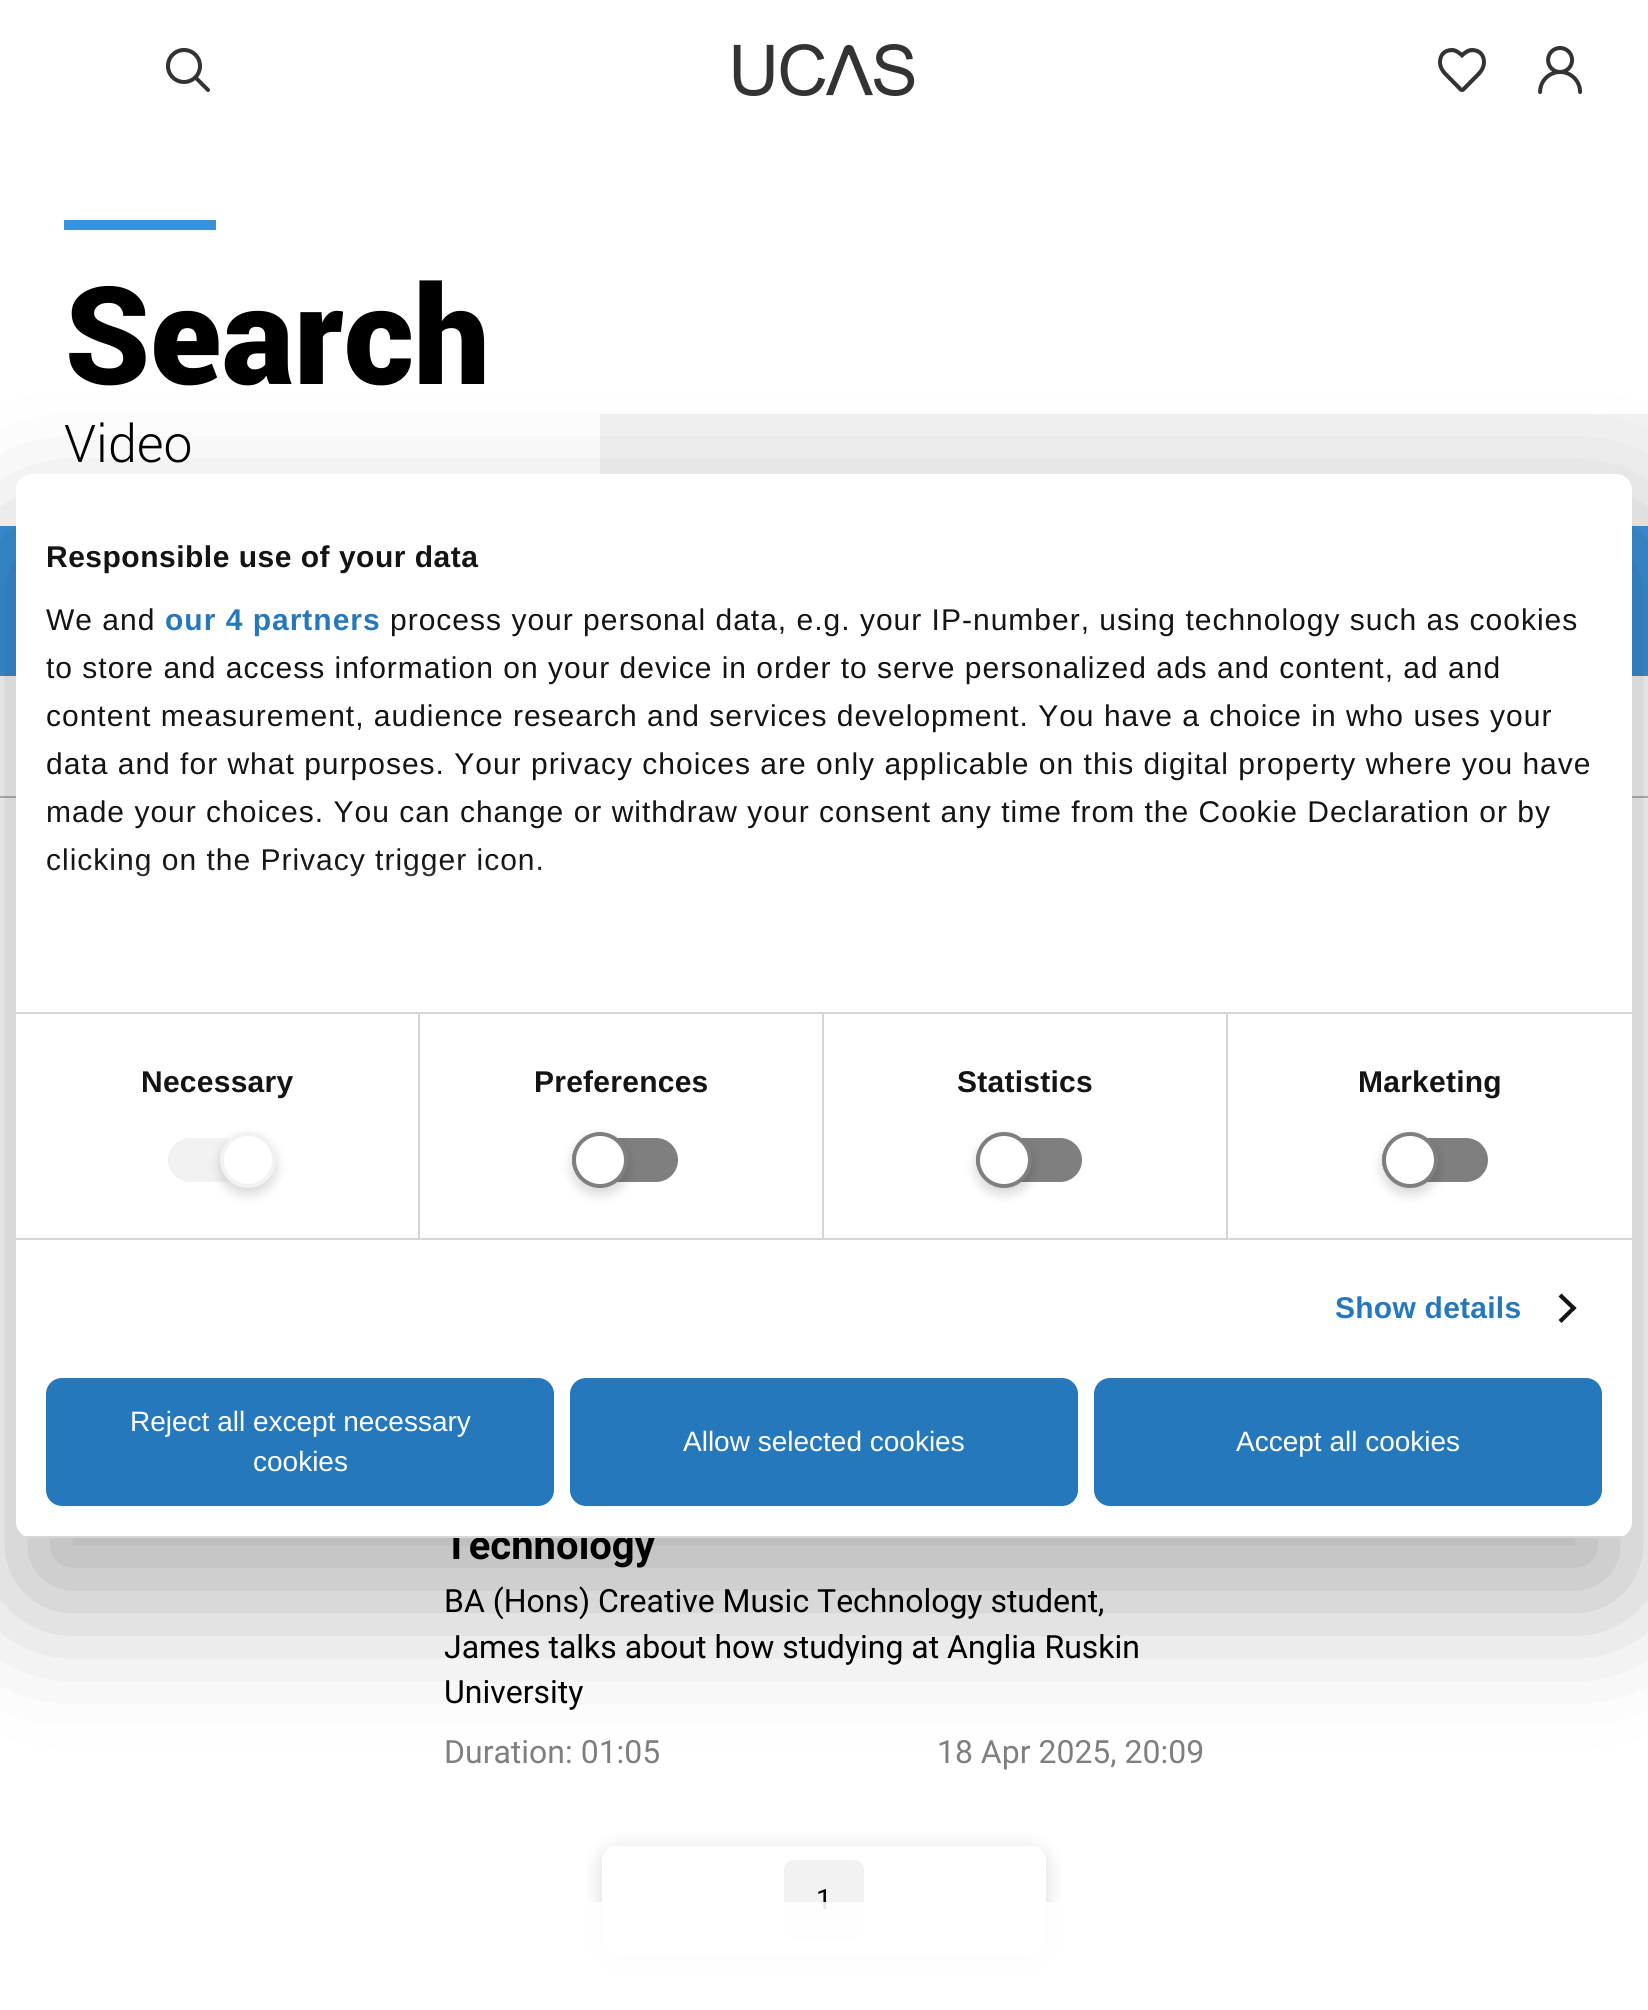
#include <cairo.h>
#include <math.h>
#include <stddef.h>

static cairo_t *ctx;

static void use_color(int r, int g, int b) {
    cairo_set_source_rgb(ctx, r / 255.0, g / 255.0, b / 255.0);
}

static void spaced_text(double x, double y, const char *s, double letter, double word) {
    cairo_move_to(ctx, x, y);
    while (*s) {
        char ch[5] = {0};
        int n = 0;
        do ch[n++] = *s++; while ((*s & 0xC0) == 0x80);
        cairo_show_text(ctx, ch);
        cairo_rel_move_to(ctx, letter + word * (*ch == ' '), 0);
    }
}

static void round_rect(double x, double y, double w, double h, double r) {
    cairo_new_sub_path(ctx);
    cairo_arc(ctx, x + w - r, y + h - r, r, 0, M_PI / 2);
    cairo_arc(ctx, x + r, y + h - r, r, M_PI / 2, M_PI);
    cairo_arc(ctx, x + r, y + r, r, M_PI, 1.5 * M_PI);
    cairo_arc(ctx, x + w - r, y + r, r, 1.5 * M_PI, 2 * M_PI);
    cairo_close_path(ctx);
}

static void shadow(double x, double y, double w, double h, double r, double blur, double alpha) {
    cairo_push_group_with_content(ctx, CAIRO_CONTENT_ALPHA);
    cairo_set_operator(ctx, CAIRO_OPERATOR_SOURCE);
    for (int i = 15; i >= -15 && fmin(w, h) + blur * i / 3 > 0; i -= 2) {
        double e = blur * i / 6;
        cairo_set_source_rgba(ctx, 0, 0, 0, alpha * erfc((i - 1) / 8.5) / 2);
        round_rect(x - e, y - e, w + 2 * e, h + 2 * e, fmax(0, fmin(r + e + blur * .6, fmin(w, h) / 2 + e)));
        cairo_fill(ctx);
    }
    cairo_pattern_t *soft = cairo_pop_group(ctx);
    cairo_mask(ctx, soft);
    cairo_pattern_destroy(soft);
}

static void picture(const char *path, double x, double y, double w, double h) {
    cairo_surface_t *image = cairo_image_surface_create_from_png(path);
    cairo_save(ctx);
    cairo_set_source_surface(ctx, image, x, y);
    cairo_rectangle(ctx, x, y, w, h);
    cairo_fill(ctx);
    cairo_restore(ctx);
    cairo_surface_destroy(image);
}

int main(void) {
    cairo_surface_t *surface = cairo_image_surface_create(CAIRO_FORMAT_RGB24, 1648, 2010);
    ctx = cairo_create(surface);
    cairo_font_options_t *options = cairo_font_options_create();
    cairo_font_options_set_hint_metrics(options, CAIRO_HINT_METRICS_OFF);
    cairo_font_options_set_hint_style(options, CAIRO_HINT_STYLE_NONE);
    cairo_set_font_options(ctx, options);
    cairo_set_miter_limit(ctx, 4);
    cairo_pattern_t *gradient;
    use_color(255, 255, 255);
    cairo_paint(ctx);
    picture("img1.png", 166, 48, 44, 44);
    picture("img2.png", 733, 44, 182, 52);
    picture("img3.png", 1438, 48, 48, 44);
    picture("img4.png", 1538, 46, 44, 48);
    use_color(59, 146, 217);
    cairo_rectangle(ctx, 64, 220, 152, 10);
    cairo_fill(ctx);
    cairo_select_font_face(ctx, "Roboto Black", CAIRO_FONT_SLANT_NORMAL, CAIRO_FONT_WEIGHT_NORMAL);
    cairo_set_font_size(ctx, 136);
    use_color(0, 0, 0);
    cairo_move_to(ctx, 64, 384);
    cairo_show_text(ctx, "Search");
    cairo_select_font_face(ctx, "Roboto Light", CAIRO_FONT_SLANT_NORMAL, CAIRO_FONT_WEIGHT_NORMAL);
    cairo_set_font_size(ctx, 52);
    cairo_move_to(ctx, 64, 462);
    cairo_show_text(ctx, "Video");
    use_color(242, 242, 242);
    cairo_rectangle(ctx, 600, 414, 956, 60);
    cairo_fill(ctx);
    cairo_rectangle(ctx, 1556, 414, 92, 112);
    cairo_fill(ctx);
    use_color(59, 146, 217);
    cairo_rectangle(ctx, 0, 526, 1648, 150);
    cairo_fill(ctx);
    use_color(185, 185, 185);
    cairo_rectangle(ctx, 0, 796, 1648, 2);
    cairo_fill(ctx);
    cairo_select_font_face(ctx, "Roboto", CAIRO_FONT_SLANT_NORMAL, CAIRO_FONT_WEIGHT_BOLD);
    cairo_set_font_size(ctx, 40);
    use_color(0, 0, 0);
    cairo_move_to(ctx, 444, 1559);
    cairo_show_text(ctx, "Technology");
    cairo_select_font_face(ctx, "Roboto", CAIRO_FONT_SLANT_NORMAL, CAIRO_FONT_WEIGHT_NORMAL);
    cairo_set_font_size(ctx, 32);
    cairo_move_to(ctx, 444, 1612);
    cairo_show_text(ctx, "BA (Hons) Creative Music Technology student,");
    cairo_move_to(ctx, 444, 1658);
    cairo_show_text(ctx, "James talks about how studying at Anglia Ruskin");
    cairo_move_to(ctx, 444, 1703);
    cairo_show_text(ctx, "University");
    use_color(127, 127, 127);
    cairo_move_to(ctx, 444, 1763);
    cairo_show_text(ctx, "Duration: 01:05");
    cairo_move_to(ctx, 937, 1763);
    cairo_show_text(ctx, "18 Apr 2025, 20:09");
    use_color(0, 0, 0);
    shadow(602, 1850, 444, 108, 14, 10, 0.15);
    use_color(255, 255, 255);
    round_rect(602, 1846, 444, 108, 14);
    cairo_fill(ctx);
    use_color(242, 242, 242);
    round_rect(784, 1860, 80, 80, 10);
    cairo_fill(ctx);
    cairo_set_font_size(ctx, 28);
    use_color(0, 0, 0);
    cairo_move_to(ctx, 816, 1909);
    cairo_show_text(ctx, "1");
    cairo_set_source_rgba(ctx, 1, 1, 1, 0.9);
    cairo_rectangle(ctx, 587, 1902, 474, 71);
    cairo_fill(ctx);
    use_color(0, 0, 0);
    shadow(16, 538, 1616, 1064, 16, 68, 0.3);
    use_color(255, 255, 255);
    round_rect(16, 474, 1616, 1064, 16);
    cairo_fill(ctx);
    use_color(214, 214, 214);
    cairo_rectangle(ctx, 16, 1012, 1616, 2);
    cairo_fill(ctx);
    cairo_select_font_face(ctx, "Liberation Sans", CAIRO_FONT_SLANT_NORMAL, CAIRO_FONT_WEIGHT_BOLD);
    cairo_set_font_size(ctx, 30);
    use_color(20, 20, 20);
    spaced_text(46, 567, "Responsible use of your data", 0.5, 0);
    cairo_select_font_face(ctx, "Liberation Sans", CAIRO_FONT_SLANT_NORMAL, CAIRO_FONT_WEIGHT_NORMAL);
    spaced_text(46, 630, "We and", 1, 0);
    cairo_select_font_face(ctx, "Liberation Sans", CAIRO_FONT_SLANT_NORMAL, CAIRO_FONT_WEIGHT_BOLD);
    use_color(37, 120, 188);
    spaced_text(165, 630, "our 4 partners", 1, 0);
    cairo_select_font_face(ctx, "Liberation Sans", CAIRO_FONT_SLANT_NORMAL, CAIRO_FONT_WEIGHT_NORMAL);
    use_color(20, 20, 20);
    spaced_text(390, 630, "process your personal data, e.g. your IP-number, using technology such as cookies", 1, 0);
    spaced_text(46, 678, "to store and access information on your device in order to serve personalized ads and content, ad and", 1, 0);
    spaced_text(46, 726, "content measurement, audience research and services development. You have a choice in who uses your", 1, 0);
    spaced_text(46, 774, "data and for what purposes. Your privacy choices are only applicable on this digital property where you have", 1, 0);
    spaced_text(46, 822, "made your choices. You can change or withdraw your consent any time from the Cookie Declaration or by", 1, 0);
    spaced_text(46, 870, "clicking on the Privacy trigger icon.", 1, 0);
    gradient = cairo_pattern_create_linear(811, 1012, 811, 862);
    cairo_pattern_add_color_stop_rgba(gradient, 0, 1, 1, 1, 1);
    cairo_pattern_add_color_stop_rgba(gradient, 0.5, 1, 1, 1, 0.8);
    cairo_pattern_add_color_stop_rgba(gradient, 1, 1, 1, 1, 0);
    cairo_set_source(ctx, gradient);
    cairo_pattern_destroy(gradient);
    cairo_rectangle(ctx, 47, 864, 494, 13);
    cairo_fill(ctx);
    use_color(214, 214, 214);
    cairo_rectangle(ctx, 16, 1238, 1616, 2);
    cairo_fill(ctx);
    cairo_rectangle(ctx, 418, 1014, 2, 224);
    cairo_fill(ctx);
    cairo_select_font_face(ctx, "Liberation Sans", CAIRO_FONT_SLANT_NORMAL, CAIRO_FONT_WEIGHT_BOLD);
    use_color(20, 20, 20);
    spaced_text(141, 1092, "Necessary", 0.25, 0);
    use_color(242, 242, 242);
    round_rect(172, 1142, 98, 36, 18);
    cairo_fill_preserve(ctx);
    cairo_set_line_width(ctx, 8);
    cairo_stroke(ctx);
    use_color(0, 0, 0);
    shadow(220, 1138, 56, 56, 28, 6, 0.16);
    use_color(255, 255, 255);
    cairo_arc(ctx, 248, 1160, 26, 0, 2 * M_PI);
    cairo_fill_preserve(ctx);
    use_color(242, 242, 242);
    cairo_set_line_width(ctx, 4);
    cairo_stroke(ctx);
    use_color(214, 214, 214);
    cairo_rectangle(ctx, 822, 1014, 2, 224);
    cairo_fill(ctx);
    use_color(20, 20, 20);
    spaced_text(534, 1092, "Preferences", 0.25, 0);
    use_color(127, 127, 127);
    round_rect(576, 1142, 98, 36, 18);
    cairo_fill_preserve(ctx);
    cairo_set_line_width(ctx, 8);
    cairo_stroke(ctx);
    use_color(0, 0, 0);
    shadow(572, 1138, 56, 56, 28, 6, 0.16);
    use_color(255, 255, 255);
    cairo_arc(ctx, 600, 1160, 26, 0, 2 * M_PI);
    cairo_fill_preserve(ctx);
    use_color(127, 127, 127);
    cairo_set_line_width(ctx, 4);
    cairo_stroke(ctx);
    use_color(214, 214, 214);
    cairo_rectangle(ctx, 1226, 1014, 2, 224);
    cairo_fill(ctx);
    use_color(20, 20, 20);
    spaced_text(957, 1092, "Statistics", 0.25, 0);
    use_color(127, 127, 127);
    round_rect(980, 1142, 98, 36, 18);
    cairo_fill_preserve(ctx);
    cairo_set_line_width(ctx, 8);
    cairo_stroke(ctx);
    use_color(0, 0, 0);
    shadow(976, 1138, 56, 56, 28, 6, 0.16);
    use_color(255, 255, 255);
    cairo_arc(ctx, 1004, 1160, 26, 0, 2 * M_PI);
    cairo_fill_preserve(ctx);
    use_color(127, 127, 127);
    cairo_set_line_width(ctx, 4);
    cairo_stroke(ctx);
    use_color(20, 20, 20);
    spaced_text(1358, 1092, "Marketing", 0.25, 0);
    use_color(127, 127, 127);
    round_rect(1386, 1142, 98, 36, 18);
    cairo_fill_preserve(ctx);
    cairo_set_line_width(ctx, 8);
    cairo_stroke(ctx);
    use_color(0, 0, 0);
    shadow(1382, 1138, 56, 56, 28, 6, 0.16);
    use_color(255, 255, 255);
    cairo_arc(ctx, 1410, 1160, 26, 0, 2 * M_PI);
    cairo_fill_preserve(ctx);
    use_color(127, 127, 127);
    cairo_set_line_width(ctx, 4);
    cairo_stroke(ctx);
    use_color(37, 120, 188);
    spaced_text(1335, 1318, "Show details", 0.25, 0);
    use_color(20, 20, 20);
    cairo_new_path(ctx);
    cairo_move_to(ctx, 1561.5, 1293.5);
    cairo_line_to(ctx, 1576.5, 1308);
    cairo_line_to(ctx, 1573.5, 1311);
    cairo_line_to(ctx, 1558.5, 1296.5);
    cairo_close_path(ctx);
    cairo_fill(ctx);
    cairo_new_path(ctx);
    cairo_move_to(ctx, 1573.5, 1305.5);
    cairo_line_to(ctx, 1576.5, 1308);
    cairo_line_to(ctx, 1561.5, 1323);
    cairo_line_to(ctx, 1558.5, 1320);
    cairo_close_path(ctx);
    cairo_fill(ctx);
    cairo_save(ctx);
    round_rect(16, 474, 1616, 1064, 16);
    cairo_clip(ctx);
    use_color(214, 214, 214);
    cairo_rectangle(ctx, 16, 1536, 1616, 2);
    cairo_fill(ctx);
    cairo_restore(ctx);
    use_color(37, 120, 188);
    round_rect(46, 1378, 508, 128, 16);
    cairo_fill(ctx);
    cairo_select_font_face(ctx, "Liberation Sans", CAIRO_FONT_SLANT_NORMAL, CAIRO_FONT_WEIGHT_NORMAL);
    cairo_set_font_size(ctx, 28);
    use_color(255, 255, 255);
    cairo_move_to(ctx, 130, 1431);
    cairo_show_text(ctx, "Reject all except necessary");
    cairo_move_to(ctx, 253, 1471);
    cairo_show_text(ctx, "cookies");
    use_color(37, 120, 188);
    round_rect(570, 1378, 508, 128, 16);
    cairo_fill(ctx);
    use_color(255, 255, 255);
    cairo_move_to(ctx, 683, 1451);
    cairo_show_text(ctx, "Allow selected cookies");
    use_color(37, 120, 188);
    round_rect(1094, 1378, 508, 128, 16);
    cairo_fill(ctx);
    use_color(255, 255, 255);
    cairo_move_to(ctx, 1236, 1451);
    cairo_show_text(ctx, "Accept all cookies");
    cairo_surface_write_to_png(surface, "result.png");
    cairo_font_options_destroy(options);
    cairo_destroy(ctx);
    cairo_surface_destroy(surface);
    return 0;
}
